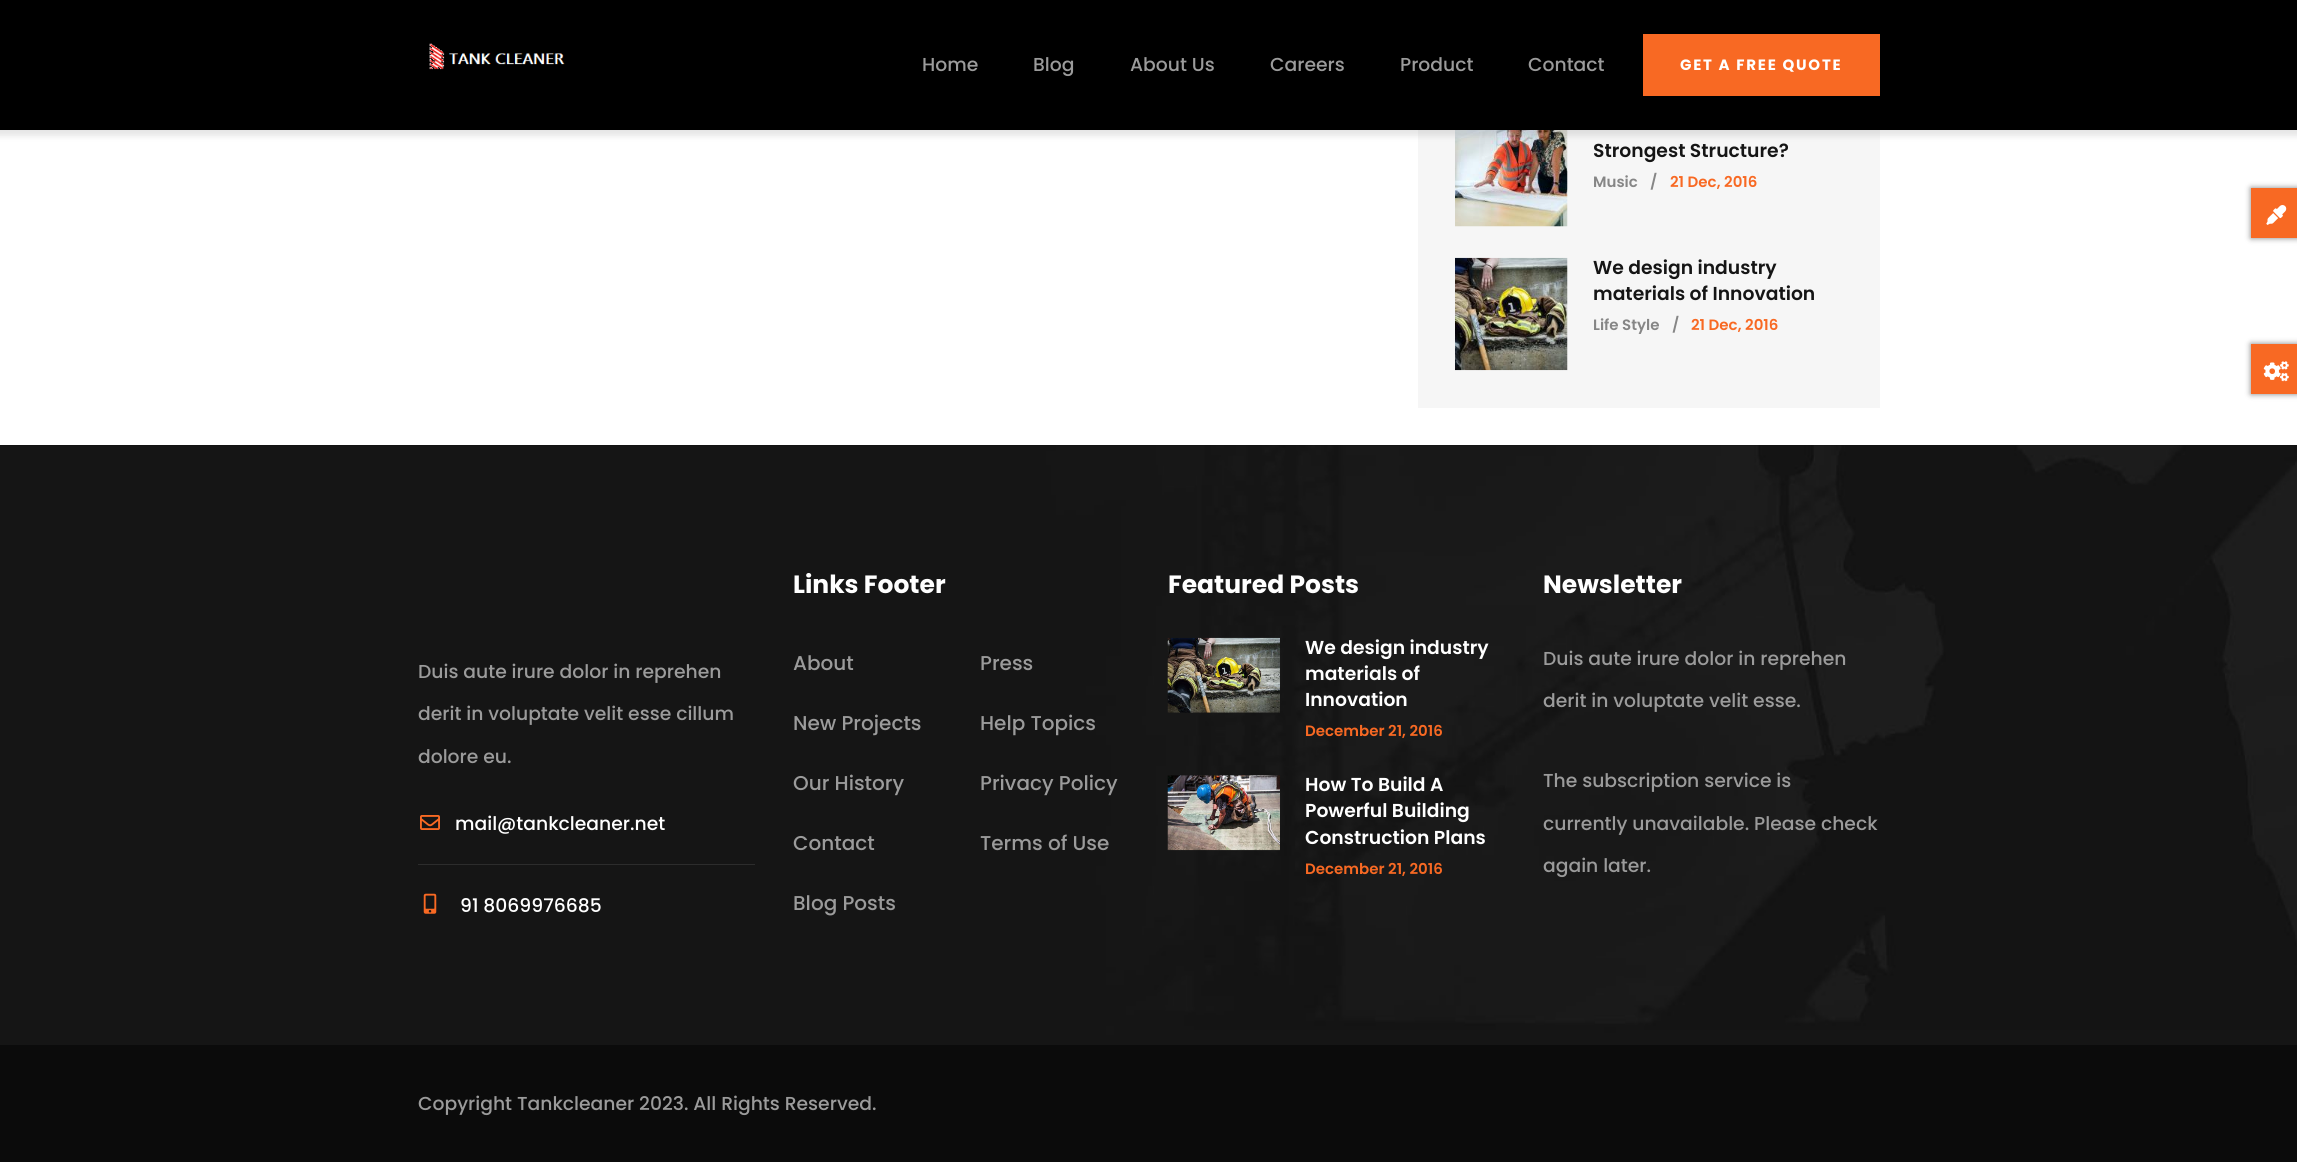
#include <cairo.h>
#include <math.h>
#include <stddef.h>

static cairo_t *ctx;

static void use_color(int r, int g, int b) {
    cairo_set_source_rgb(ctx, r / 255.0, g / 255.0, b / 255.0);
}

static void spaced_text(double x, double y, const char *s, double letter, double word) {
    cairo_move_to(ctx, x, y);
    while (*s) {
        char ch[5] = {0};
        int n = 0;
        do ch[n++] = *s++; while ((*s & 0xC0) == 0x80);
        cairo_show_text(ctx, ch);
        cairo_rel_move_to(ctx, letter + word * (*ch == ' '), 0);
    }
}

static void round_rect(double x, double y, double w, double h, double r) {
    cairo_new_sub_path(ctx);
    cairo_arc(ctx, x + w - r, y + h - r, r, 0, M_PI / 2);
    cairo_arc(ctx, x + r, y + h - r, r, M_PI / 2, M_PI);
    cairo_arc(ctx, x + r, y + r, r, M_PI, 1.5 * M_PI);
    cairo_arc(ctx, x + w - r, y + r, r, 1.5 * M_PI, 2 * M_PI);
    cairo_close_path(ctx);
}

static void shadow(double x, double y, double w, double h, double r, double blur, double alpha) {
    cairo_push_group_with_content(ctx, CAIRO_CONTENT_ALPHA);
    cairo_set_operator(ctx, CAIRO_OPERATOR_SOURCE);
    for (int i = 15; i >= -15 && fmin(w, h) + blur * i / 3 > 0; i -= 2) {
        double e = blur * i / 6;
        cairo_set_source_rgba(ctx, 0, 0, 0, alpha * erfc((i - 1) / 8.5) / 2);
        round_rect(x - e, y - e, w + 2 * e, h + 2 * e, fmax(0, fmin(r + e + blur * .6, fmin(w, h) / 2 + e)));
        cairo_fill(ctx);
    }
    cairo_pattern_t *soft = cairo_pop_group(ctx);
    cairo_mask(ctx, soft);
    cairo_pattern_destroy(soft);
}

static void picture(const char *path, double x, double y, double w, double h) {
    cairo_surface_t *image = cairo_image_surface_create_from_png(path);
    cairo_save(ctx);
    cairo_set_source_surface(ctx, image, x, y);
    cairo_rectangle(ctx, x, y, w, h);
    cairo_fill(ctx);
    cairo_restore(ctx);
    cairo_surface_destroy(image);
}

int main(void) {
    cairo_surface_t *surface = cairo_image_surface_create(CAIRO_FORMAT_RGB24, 2297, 1162);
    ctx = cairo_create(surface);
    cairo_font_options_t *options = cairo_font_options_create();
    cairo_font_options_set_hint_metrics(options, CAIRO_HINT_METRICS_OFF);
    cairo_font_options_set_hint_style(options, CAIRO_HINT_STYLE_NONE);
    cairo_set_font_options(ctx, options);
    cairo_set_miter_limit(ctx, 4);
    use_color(255, 255, 255);
    cairo_paint(ctx);
    use_color(246, 246, 246);
    cairo_rectangle(ctx, 1418, 130, 462, 278);
    cairo_fill(ctx);
    picture("img2.png", 1455, 130, 113, 97);
    use_color(0, 0, 0);
    shadow(-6, -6, 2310, 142, 0, 3, 0.1);
    use_color(0, 0, 0);
    cairo_rectangle(ctx, 0, 0, 2297, 130);
    cairo_fill(ctx);
    picture("img1.png", 429, 43, 136, 27);
    cairo_select_font_face(ctx, "Poppins Medium", CAIRO_FONT_SLANT_NORMAL, CAIRO_FONT_WEIGHT_NORMAL);
    cairo_set_font_size(ctx, 18.75);
    use_color(155, 155, 155);
    cairo_move_to(ctx, 922, 71);
    cairo_show_text(ctx, "Home");
    cairo_move_to(ctx, 1033, 71);
    cairo_show_text(ctx, "Blog");
    cairo_move_to(ctx, 1130, 71);
    cairo_show_text(ctx, "About Us");
    cairo_move_to(ctx, 1270, 71);
    cairo_show_text(ctx, "Careers");
    cairo_move_to(ctx, 1400, 71);
    cairo_show_text(ctx, "Product");
    cairo_move_to(ctx, 1528, 71);
    cairo_show_text(ctx, "Contact");
    use_color(248, 105, 35);
    cairo_rectangle(ctx, 1643, 34, 237, 62);
    cairo_fill(ctx);
    cairo_select_font_face(ctx, "Poppins", CAIRO_FONT_SLANT_NORMAL, CAIRO_FONT_WEIGHT_BOLD);
    cairo_set_font_size(ctx, 15);
    use_color(255, 255, 255);
    spaced_text(1680, 70, "GET A FREE QUOTE", 1.75, 0);
    cairo_select_font_face(ctx, "Poppins SemiBold", CAIRO_FONT_SLANT_NORMAL, CAIRO_FONT_WEIGHT_NORMAL);
    cairo_set_font_size(ctx, 18.75);
    use_color(21, 21, 21);
    cairo_move_to(ctx, 1593, 157);
    cairo_show_text(ctx, "Strongest Structure?");
    cairo_set_font_size(ctx, 15);
    use_color(134, 134, 134);
    cairo_move_to(ctx, 1593, 187);
    cairo_show_text(ctx, "Music");
    cairo_move_to(ctx, 1650, 187);
    cairo_show_text(ctx, "/");
    use_color(248, 105, 35);
    cairo_move_to(ctx, 1670, 187);
    cairo_show_text(ctx, "21 Dec, 2016");
    picture("img3.png", 1455, 257, 113, 114);
    cairo_set_font_size(ctx, 18.75);
    use_color(21, 21, 21);
    cairo_move_to(ctx, 1593, 274);
    cairo_show_text(ctx, "We design industry");
    cairo_move_to(ctx, 1593, 300);
    cairo_show_text(ctx, "materials of Innovation");
    cairo_set_font_size(ctx, 15);
    use_color(134, 134, 134);
    cairo_move_to(ctx, 1593, 330);
    cairo_show_text(ctx, "Life Style");
    cairo_move_to(ctx, 1672, 330);
    cairo_show_text(ctx, "/");
    use_color(248, 105, 35);
    cairo_move_to(ctx, 1691, 330);
    cairo_show_text(ctx, "21 Dec, 2016");
    use_color(11, 11, 11);
    cairo_rectangle(ctx, 0, 445, 2297, 717);
    cairo_fill(ctx);
    picture("img4.png", 0, 445, 2297, 600);
    cairo_select_font_face(ctx, "Poppins Medium", CAIRO_FONT_SLANT_NORMAL, CAIRO_FONT_WEIGHT_NORMAL);
    cairo_set_font_size(ctx, 18.75);
    use_color(155, 155, 155);
    cairo_move_to(ctx, 418, 678);
    cairo_show_text(ctx, "Duis aute irure dolor in reprehen");
    cairo_move_to(ctx, 418, 720);
    cairo_show_text(ctx, "derit in voluptate velit esse cillum");
    cairo_move_to(ctx, 418, 763);
    cairo_show_text(ctx, "dolore eu.");
    use_color(44, 44, 44);
    cairo_rectangle(ctx, 418, 864, 337, 1);
    cairo_fill(ctx);
    picture("img5.png", 420, 815, 20, 15);
    use_color(255, 255, 255);
    cairo_move_to(ctx, 455, 830);
    cairo_show_text(ctx, "mail@tankcleaner.net");
    picture("img6.png", 423, 893, 14, 21);
    cairo_move_to(ctx, 460, 912);
    cairo_show_text(ctx, "91 8069976685");
    cairo_select_font_face(ctx, "Poppins", CAIRO_FONT_SLANT_NORMAL, CAIRO_FONT_WEIGHT_BOLD);
    cairo_set_font_size(ctx, 25);
    cairo_move_to(ctx, 793, 593);
    cairo_show_text(ctx, "Links Footer");
    cairo_select_font_face(ctx, "Poppins Medium", CAIRO_FONT_SLANT_NORMAL, CAIRO_FONT_WEIGHT_NORMAL);
    cairo_set_font_size(ctx, 20);
    use_color(155, 155, 155);
    cairo_move_to(ctx, 793, 670);
    cairo_show_text(ctx, "About");
    cairo_move_to(ctx, 793, 730);
    cairo_show_text(ctx, "New Projects");
    cairo_move_to(ctx, 793, 790);
    cairo_show_text(ctx, "Our History");
    cairo_move_to(ctx, 793, 850);
    cairo_show_text(ctx, "Contact");
    cairo_move_to(ctx, 793, 910);
    cairo_show_text(ctx, "Blog Posts");
    cairo_move_to(ctx, 980, 670);
    cairo_show_text(ctx, "Press");
    cairo_move_to(ctx, 980, 730);
    cairo_show_text(ctx, "Help Topics");
    cairo_move_to(ctx, 980, 790);
    cairo_show_text(ctx, "Privacy Policy");
    cairo_move_to(ctx, 980, 850);
    cairo_show_text(ctx, "Terms of Use");
    cairo_select_font_face(ctx, "Poppins", CAIRO_FONT_SLANT_NORMAL, CAIRO_FONT_WEIGHT_BOLD);
    cairo_set_font_size(ctx, 25);
    use_color(255, 255, 255);
    cairo_move_to(ctx, 1168, 593);
    cairo_show_text(ctx, "Featured Posts");
    picture("img7.png", 1167, 637, 113, 76);
    cairo_select_font_face(ctx, "Poppins SemiBold", CAIRO_FONT_SLANT_NORMAL, CAIRO_FONT_WEIGHT_NORMAL);
    cairo_set_font_size(ctx, 18.75);
    cairo_move_to(ctx, 1305, 654);
    cairo_show_text(ctx, "We design industry");
    cairo_move_to(ctx, 1305, 680);
    cairo_show_text(ctx, "materials of");
    cairo_move_to(ctx, 1305, 706);
    cairo_show_text(ctx, "Innovation");
    cairo_set_font_size(ctx, 15);
    use_color(248, 105, 35);
    cairo_move_to(ctx, 1305, 736);
    cairo_show_text(ctx, "December 21, 2016");
    picture("img8.png", 1167, 775, 113, 76);
    cairo_set_font_size(ctx, 18.75);
    use_color(255, 255, 255);
    cairo_move_to(ctx, 1305, 791);
    cairo_show_text(ctx, "How To Build A");
    cairo_move_to(ctx, 1305, 817);
    cairo_show_text(ctx, "Powerful Building");
    cairo_move_to(ctx, 1305, 844);
    cairo_show_text(ctx, "Construction Plans");
    cairo_set_font_size(ctx, 15);
    use_color(248, 105, 35);
    cairo_move_to(ctx, 1305, 874);
    cairo_show_text(ctx, "December 21, 2016");
    cairo_select_font_face(ctx, "Poppins", CAIRO_FONT_SLANT_NORMAL, CAIRO_FONT_WEIGHT_BOLD);
    cairo_set_font_size(ctx, 25);
    use_color(255, 255, 255);
    cairo_move_to(ctx, 1543, 593);
    cairo_show_text(ctx, "Newsletter");
    cairo_select_font_face(ctx, "Poppins Medium", CAIRO_FONT_SLANT_NORMAL, CAIRO_FONT_WEIGHT_NORMAL);
    cairo_set_font_size(ctx, 18.75);
    use_color(155, 155, 155);
    cairo_move_to(ctx, 1543, 665);
    cairo_show_text(ctx, "Duis aute irure dolor in reprehen");
    cairo_move_to(ctx, 1543, 707);
    cairo_show_text(ctx, "derit in voluptate velit esse.");
    cairo_move_to(ctx, 1543, 787);
    cairo_show_text(ctx, "The subscription service is");
    cairo_move_to(ctx, 1543, 830);
    cairo_show_text(ctx, "currently unavailable. Please check");
    cairo_move_to(ctx, 1543, 872);
    cairo_show_text(ctx, "again later.");
    cairo_move_to(ctx, 418, 1110);
    cairo_show_text(ctx, "Copyright Tankcleaner 2023. All Rights Reserved.");
    use_color(0, 0, 0);
    shadow(2251, 188, 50, 50, 0, 3, 0.5);
    use_color(248, 105, 35);
    cairo_rectangle(ctx, 2251, 188, 46, 50);
    cairo_fill(ctx);
    picture("img9.png", 2266, 205, 21, 20);
    use_color(0, 0, 0);
    shadow(2251, 344, 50, 50, 0, 3, 0.5);
    use_color(248, 105, 35);
    cairo_rectangle(ctx, 2251, 344, 46, 50);
    cairo_fill(ctx);
    picture("img10.png", 2263, 361, 26, 21);
    cairo_surface_write_to_png(surface, "result.png");
    cairo_font_options_destroy(options);
    cairo_destroy(ctx);
    cairo_surface_destroy(surface);
    return 0;
}
